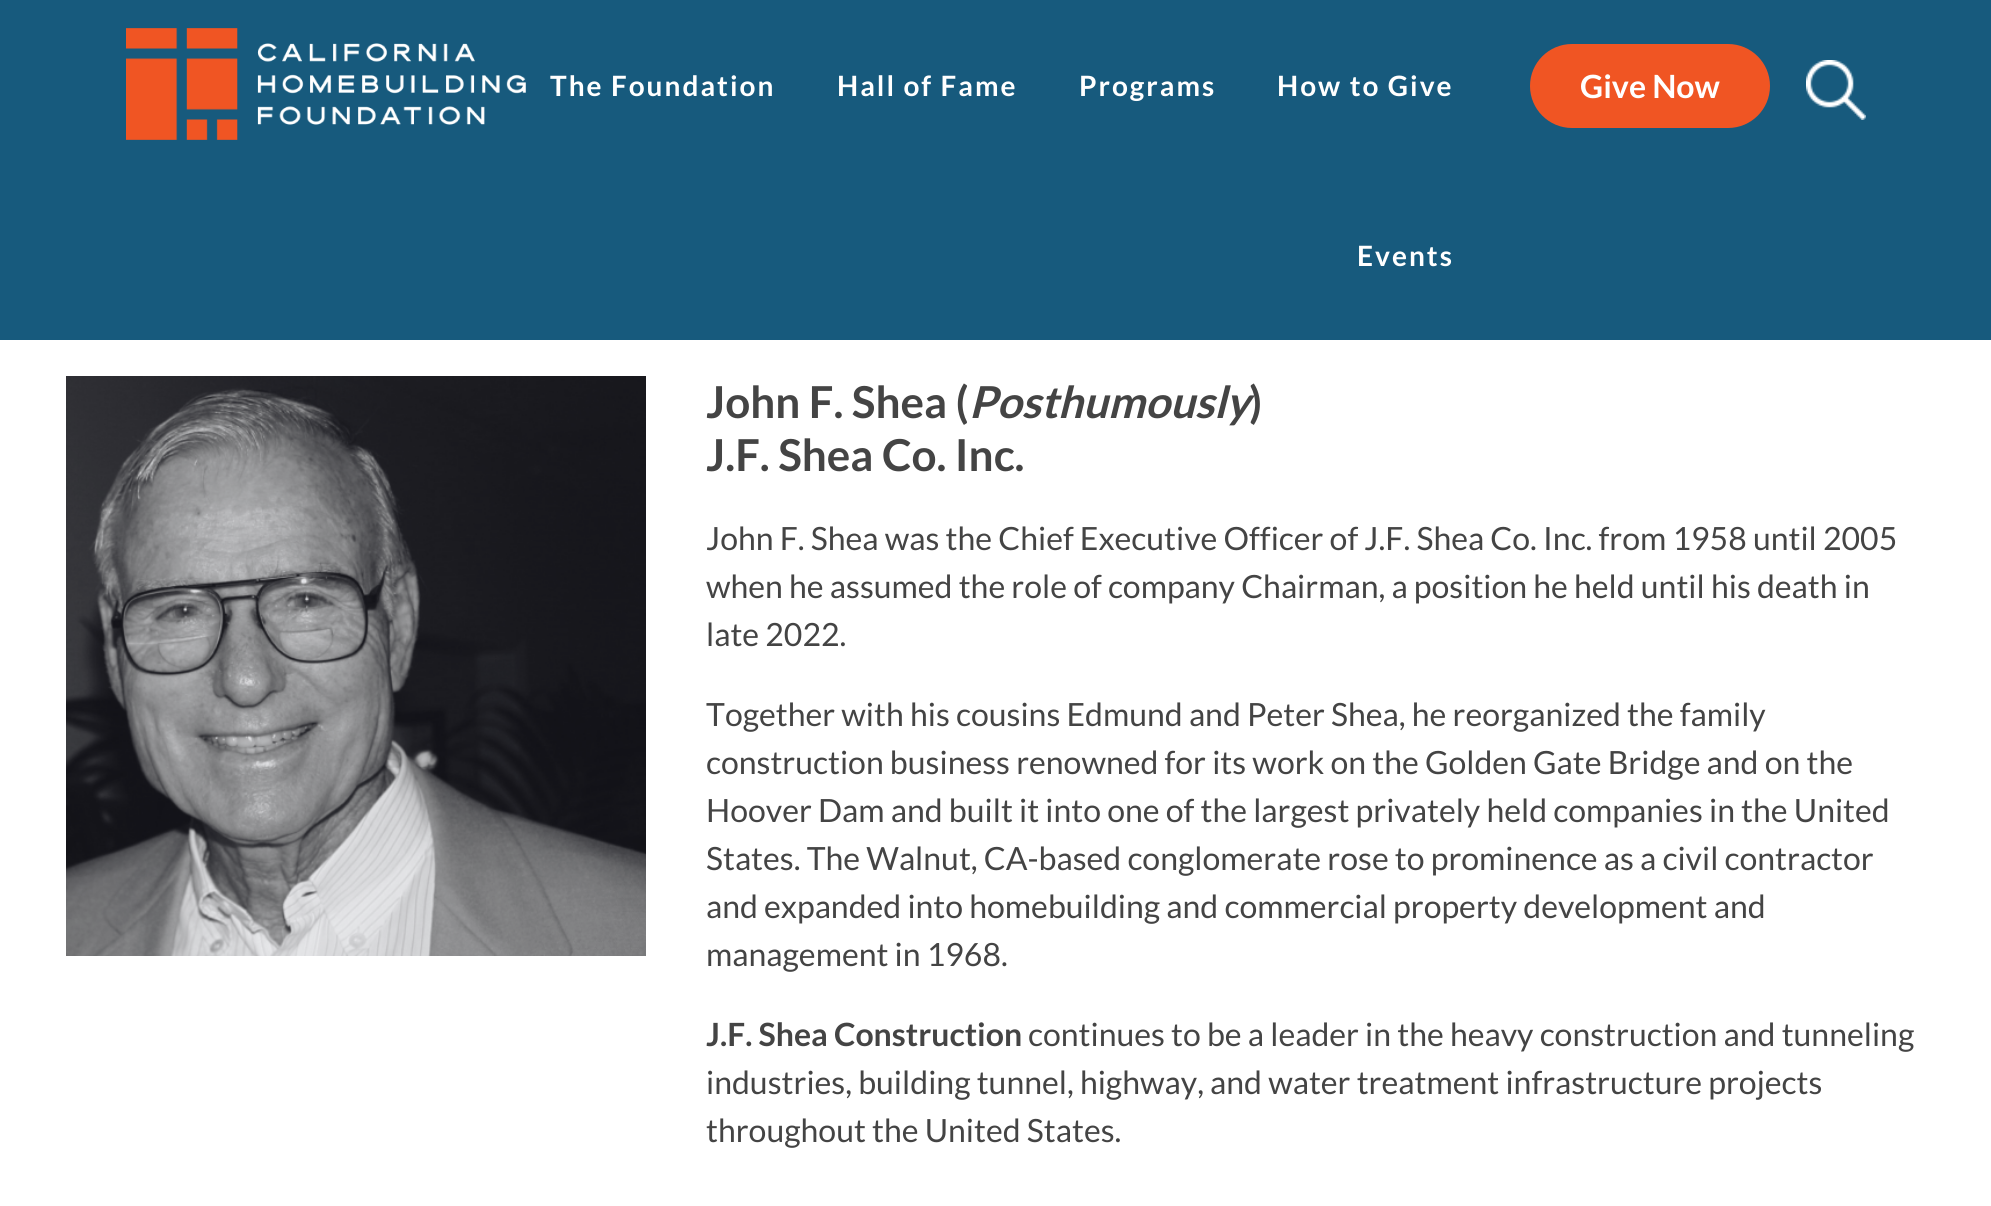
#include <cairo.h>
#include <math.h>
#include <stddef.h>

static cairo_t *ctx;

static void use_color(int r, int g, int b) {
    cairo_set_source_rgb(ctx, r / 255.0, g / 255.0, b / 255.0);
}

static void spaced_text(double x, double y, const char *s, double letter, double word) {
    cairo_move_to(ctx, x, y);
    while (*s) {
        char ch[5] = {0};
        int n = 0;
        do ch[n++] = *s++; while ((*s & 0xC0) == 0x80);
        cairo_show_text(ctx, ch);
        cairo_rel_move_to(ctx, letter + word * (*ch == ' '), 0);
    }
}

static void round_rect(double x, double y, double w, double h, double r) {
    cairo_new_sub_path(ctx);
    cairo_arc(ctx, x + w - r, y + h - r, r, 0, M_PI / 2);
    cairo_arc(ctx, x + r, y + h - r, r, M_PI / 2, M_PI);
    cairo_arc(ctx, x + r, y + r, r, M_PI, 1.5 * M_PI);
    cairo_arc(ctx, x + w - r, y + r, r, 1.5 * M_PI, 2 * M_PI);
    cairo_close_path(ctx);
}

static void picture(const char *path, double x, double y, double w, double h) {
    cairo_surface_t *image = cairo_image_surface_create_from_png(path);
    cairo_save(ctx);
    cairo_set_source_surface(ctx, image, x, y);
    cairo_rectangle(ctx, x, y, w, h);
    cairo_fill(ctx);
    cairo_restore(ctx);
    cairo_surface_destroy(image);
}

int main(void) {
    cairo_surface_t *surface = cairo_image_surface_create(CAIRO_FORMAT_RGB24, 1991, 1206);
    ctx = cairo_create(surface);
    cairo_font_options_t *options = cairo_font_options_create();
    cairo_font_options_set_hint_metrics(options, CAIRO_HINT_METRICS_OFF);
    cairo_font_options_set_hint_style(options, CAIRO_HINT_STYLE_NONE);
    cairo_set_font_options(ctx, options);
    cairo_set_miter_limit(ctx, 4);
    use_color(255, 255, 255);
    cairo_paint(ctx);
    use_color(23, 90, 125);
    cairo_rectangle(ctx, 0, 0, 1991, 340);
    cairo_fill(ctx);
    picture("img1.png", 126, 28, 400, 112);
    cairo_select_font_face(ctx, "Lato", CAIRO_FONT_SLANT_NORMAL, CAIRO_FONT_WEIGHT_BOLD);
    cairo_set_font_size(ctx, 28);
    use_color(255, 255, 255);
    spaced_text(550, 96, "The Foundation", 2, 0);
    spaced_text(837, 96, "Hall of Fame", 2, 0);
    spaced_text(1079, 96, "Programs", 2, 0);
    spaced_text(1277, 96, "How to Give", 2, 0);
    spaced_text(1357, 266, "Events", 2, 0);
    use_color(240, 85, 35);
    round_rect(1530, 44, 240, 84, 42);
    cairo_fill(ctx);
    cairo_set_font_size(ctx, 32);
    use_color(255, 255, 255);
    cairo_move_to(ctx, 1580, 98);
    cairo_show_text(ctx, "Give Now");
    picture("img2.png", 1806, 60, 60, 60);
    picture("img3.png", 66, 376, 580, 580);
    cairo_set_font_size(ctx, 44);
    use_color(68, 68, 68);
    cairo_move_to(ctx, 706, 418);
    cairo_show_text(ctx, "John F. Shea (");
    cairo_select_font_face(ctx, "Lato", CAIRO_FONT_SLANT_ITALIC, CAIRO_FONT_WEIGHT_BOLD);
    cairo_move_to(ctx, 969, 418);
    cairo_show_text(ctx, "Posthumously");
    cairo_select_font_face(ctx, "Lato", CAIRO_FONT_SLANT_NORMAL, CAIRO_FONT_WEIGHT_BOLD);
    cairo_move_to(ctx, 1249, 418);
    cairo_show_text(ctx, ")");
    cairo_move_to(ctx, 706, 471);
    cairo_show_text(ctx, "J.F. Shea Co. Inc.");
    cairo_select_font_face(ctx, "Lato", CAIRO_FONT_SLANT_NORMAL, CAIRO_FONT_WEIGHT_NORMAL);
    cairo_set_font_size(ctx, 32);
    cairo_move_to(ctx, 706, 550);
    cairo_show_text(ctx, "John F. Shea was the Chief Executive Officer of J.F. Shea Co. Inc. from 1958 until 2005");
    cairo_move_to(ctx, 706, 598);
    cairo_show_text(ctx, "when he assumed the role of company Chairman, a position he held until his death in");
    cairo_move_to(ctx, 706, 646);
    cairo_show_text(ctx, "late 2022.");
    cairo_move_to(ctx, 706, 726);
    cairo_show_text(ctx, "Together with his cousins Edmund and Peter Shea, he reorganized the family");
    cairo_move_to(ctx, 706, 774);
    cairo_show_text(ctx, "construction business renowned for its work on the Golden Gate Bridge and on the");
    cairo_move_to(ctx, 706, 822);
    cairo_show_text(ctx, "Hoover Dam and built it into one of the largest privately held companies in the United");
    cairo_move_to(ctx, 706, 870);
    cairo_show_text(ctx, "States. The Walnut, CA-based conglomerate rose to prominence as a civil contractor");
    cairo_move_to(ctx, 706, 918);
    cairo_show_text(ctx, "and expanded into homebuilding and commercial property development and");
    cairo_move_to(ctx, 706, 966);
    cairo_show_text(ctx, "management in 1968.");
    cairo_select_font_face(ctx, "Lato", CAIRO_FONT_SLANT_NORMAL, CAIRO_FONT_WEIGHT_BOLD);
    cairo_move_to(ctx, 706, 1046);
    cairo_show_text(ctx, "J.F. Shea Construction");
    cairo_select_font_face(ctx, "Lato", CAIRO_FONT_SLANT_NORMAL, CAIRO_FONT_WEIGHT_NORMAL);
    cairo_move_to(ctx, 1028, 1046);
    cairo_show_text(ctx, "continues to be a leader in the heavy construction and tunneling");
    cairo_move_to(ctx, 706, 1094);
    cairo_show_text(ctx, "industries, building tunnel, highway, and water treatment infrastructure projects");
    cairo_move_to(ctx, 706, 1142);
    cairo_show_text(ctx, "throughout the United States.");
    cairo_surface_write_to_png(surface, "result.png");
    cairo_font_options_destroy(options);
    cairo_destroy(ctx);
    cairo_surface_destroy(surface);
    return 0;
}
